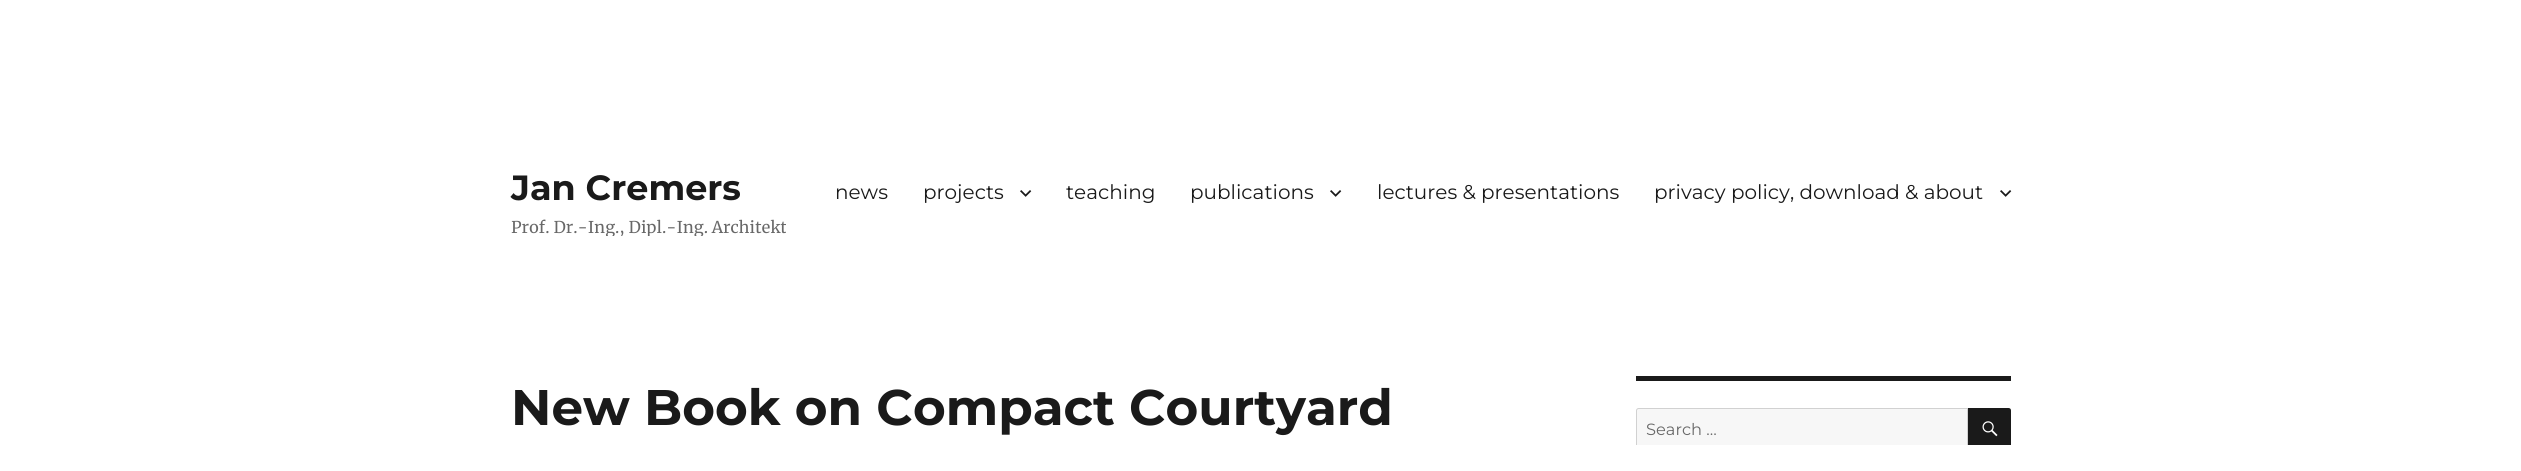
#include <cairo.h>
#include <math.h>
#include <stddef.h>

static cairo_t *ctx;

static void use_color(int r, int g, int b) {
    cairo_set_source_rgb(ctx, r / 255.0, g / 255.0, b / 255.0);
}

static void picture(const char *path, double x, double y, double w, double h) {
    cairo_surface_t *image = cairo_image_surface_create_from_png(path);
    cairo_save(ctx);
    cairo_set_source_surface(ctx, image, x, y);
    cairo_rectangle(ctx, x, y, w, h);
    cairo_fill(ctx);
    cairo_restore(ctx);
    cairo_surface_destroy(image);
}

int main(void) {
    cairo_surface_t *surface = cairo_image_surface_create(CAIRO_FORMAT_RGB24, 2521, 471);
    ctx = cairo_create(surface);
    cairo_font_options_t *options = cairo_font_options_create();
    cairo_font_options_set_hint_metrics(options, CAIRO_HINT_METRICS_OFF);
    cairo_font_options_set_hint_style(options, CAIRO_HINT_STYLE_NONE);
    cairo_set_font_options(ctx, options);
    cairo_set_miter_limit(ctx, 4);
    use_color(255, 255, 255);
    cairo_paint(ctx);
    cairo_select_font_face(ctx, "Montserrat Thin", CAIRO_FONT_SLANT_NORMAL, CAIRO_FONT_WEIGHT_NORMAL);
    cairo_set_font_size(ctx, 35);
    use_color(26, 26, 26);
    cairo_move_to(ctx, 511, 200);
    cairo_show_text(ctx, "Jan Cremers");
    cairo_save(ctx);
    cairo_rectangle(ctx, 511, 166, 275, 70);
    cairo_clip(ctx);
    cairo_select_font_face(ctx, "Merriweather", CAIRO_FONT_SLANT_NORMAL, CAIRO_FONT_WEIGHT_NORMAL);
    cairo_set_font_size(ctx, 16.25);
    use_color(104, 104, 104);
    cairo_move_to(ctx, 511, 233);
    cairo_show_text(ctx, "Prof. Dr.-Ing., Dipl.-Ing. Architekt");
    cairo_restore(ctx);
    cairo_select_font_face(ctx, "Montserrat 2 Thin", CAIRO_FONT_SLANT_NORMAL, CAIRO_FONT_WEIGHT_NORMAL);
    cairo_set_font_size(ctx, 20);
    cairo_move_to(ctx, 835, 199);
    cairo_show_text(ctx, "news");
    cairo_move_to(ctx, 923, 199);
    cairo_show_text(ctx, "projects");
    picture("img1.png", 1020, 190, 12, 7);
    cairo_move_to(ctx, 1066, 199);
    cairo_show_text(ctx, "teaching");
    cairo_move_to(ctx, 1190, 199);
    cairo_show_text(ctx, "publications");
    picture("img1.png", 1330, 190, 12, 7);
    cairo_move_to(ctx, 1377, 199);
    cairo_show_text(ctx, "lectures & presentations");
    cairo_move_to(ctx, 1654, 199);
    cairo_show_text(ctx, "privacy policy, download & about");
    picture("img1.png", 2000, 190, 12, 7);
    cairo_select_font_face(ctx, "Montserrat Thin", CAIRO_FONT_SLANT_NORMAL, CAIRO_FONT_WEIGHT_NORMAL);
    cairo_set_font_size(ctx, 50);
    cairo_move_to(ctx, 511, 425);
    cairo_show_text(ctx, "New Book on Compact Courtyard");
    cairo_rectangle(ctx, 1636, 376, 375, 5);
    cairo_fill(ctx);
    use_color(247, 247, 247);
    cairo_new_path(ctx);
    cairo_move_to(ctx, 1638.5, 408.5);
    cairo_line_to(ctx, 1967.5, 408.5);
    cairo_line_to(ctx, 1967.5, 450.5);
    cairo_line_to(ctx, 1638.5, 450.5);
    cairo_curve_to(ctx, 1637.5, 450.5, 1636.5, 449.5, 1636.5, 448.5);
    cairo_line_to(ctx, 1636.5, 410.5);
    cairo_curve_to(ctx, 1636.5, 409.5, 1637.5, 408.5, 1638.5, 408.5);
    cairo_close_path(ctx);
    cairo_fill_preserve(ctx);
    use_color(209, 209, 209);
    cairo_set_line_width(ctx, 1);
    cairo_stroke(ctx);
    cairo_select_font_face(ctx, "Montserrat 2 Thin", CAIRO_FONT_SLANT_NORMAL, CAIRO_FONT_WEIGHT_NORMAL);
    cairo_set_font_size(ctx, 16.25);
    use_color(104, 104, 104);
    cairo_move_to(ctx, 1646, 435);
    cairo_show_text(ctx, "Search …");
    use_color(26, 26, 26);
    cairo_new_path(ctx);
    cairo_move_to(ctx, 1968, 408);
    cairo_line_to(ctx, 2008.5, 408);
    cairo_curve_to(ctx, 2010, 408, 2011, 409, 2011, 410.5);
    cairo_line_to(ctx, 2011, 448.5);
    cairo_curve_to(ctx, 2011, 450, 2010, 451, 2008.5, 451);
    cairo_line_to(ctx, 1968, 451);
    cairo_close_path(ctx);
    cairo_fill(ctx);
    picture("img2.png", 1982, 421, 16, 16);
    use_color(255, 255, 255);
    cairo_rectangle(ctx, 1636, 445, 375, 6);
    cairo_fill(ctx);
    cairo_surface_write_to_png(surface, "result.png");
    cairo_font_options_destroy(options);
    cairo_destroy(ctx);
    cairo_surface_destroy(surface);
    return 0;
}
